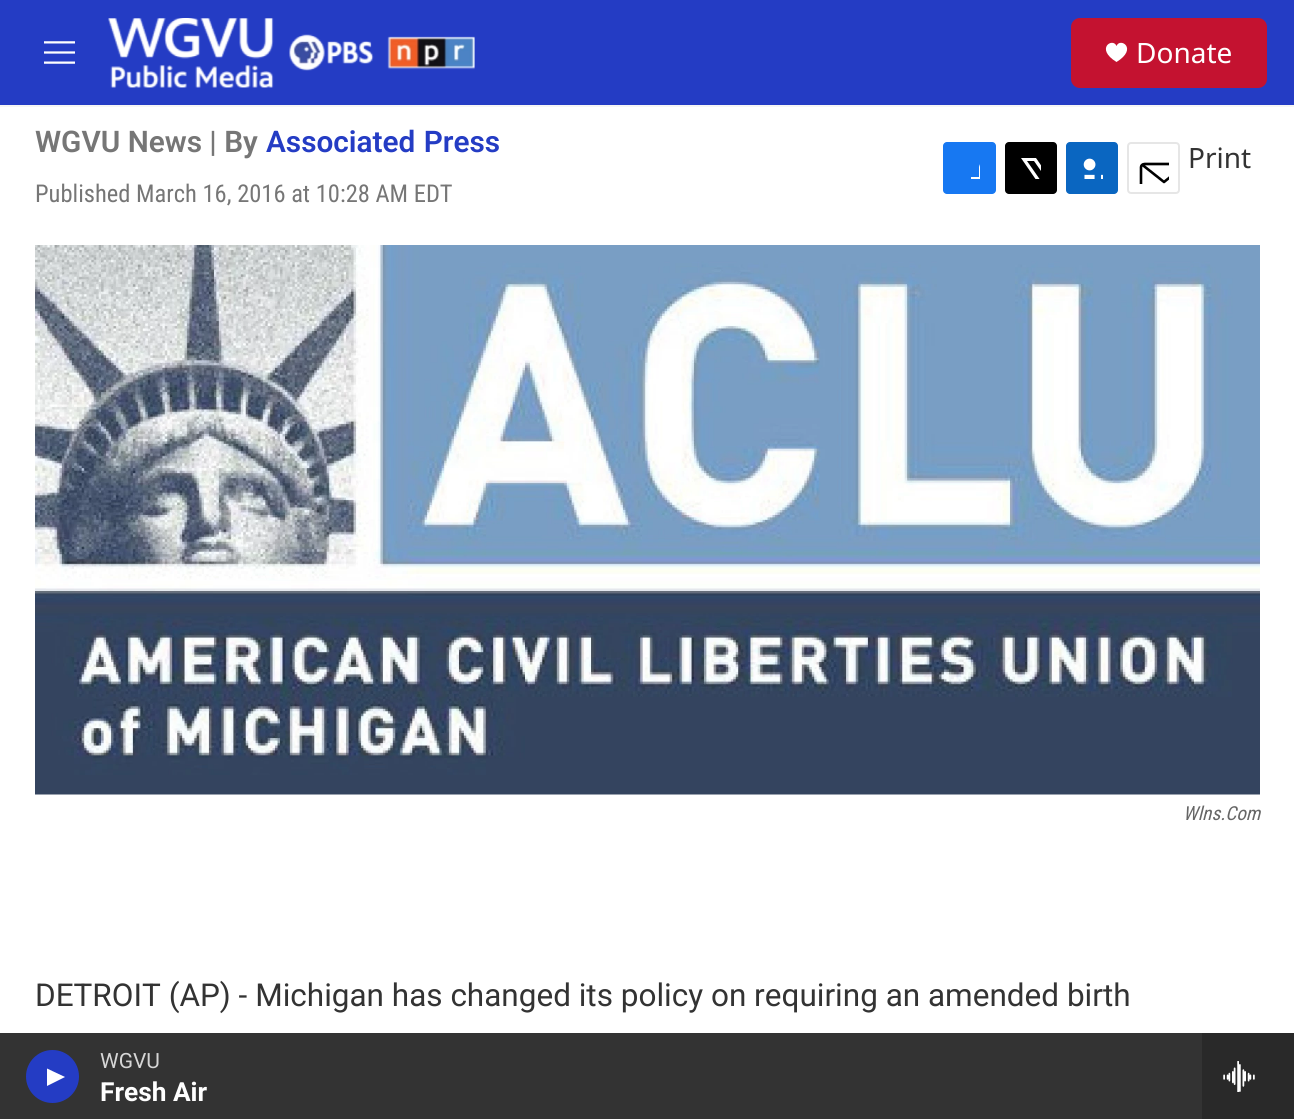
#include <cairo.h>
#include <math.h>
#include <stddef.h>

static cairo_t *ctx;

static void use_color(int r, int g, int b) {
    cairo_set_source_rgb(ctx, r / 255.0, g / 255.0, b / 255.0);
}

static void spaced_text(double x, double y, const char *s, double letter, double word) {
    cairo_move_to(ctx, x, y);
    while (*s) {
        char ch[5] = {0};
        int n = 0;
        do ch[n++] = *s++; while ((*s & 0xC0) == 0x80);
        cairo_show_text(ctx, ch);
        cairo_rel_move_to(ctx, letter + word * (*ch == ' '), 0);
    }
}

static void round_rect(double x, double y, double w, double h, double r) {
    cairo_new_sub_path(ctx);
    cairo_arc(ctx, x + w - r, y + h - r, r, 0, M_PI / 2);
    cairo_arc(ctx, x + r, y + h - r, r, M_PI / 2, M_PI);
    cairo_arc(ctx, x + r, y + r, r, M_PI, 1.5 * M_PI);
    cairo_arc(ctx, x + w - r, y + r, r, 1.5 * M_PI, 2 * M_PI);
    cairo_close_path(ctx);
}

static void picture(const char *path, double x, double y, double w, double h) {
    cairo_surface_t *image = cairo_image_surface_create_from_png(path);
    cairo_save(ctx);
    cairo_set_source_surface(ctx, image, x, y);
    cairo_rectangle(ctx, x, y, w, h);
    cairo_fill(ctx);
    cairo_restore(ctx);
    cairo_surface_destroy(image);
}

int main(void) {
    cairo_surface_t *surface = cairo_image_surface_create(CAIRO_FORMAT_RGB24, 1294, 1119);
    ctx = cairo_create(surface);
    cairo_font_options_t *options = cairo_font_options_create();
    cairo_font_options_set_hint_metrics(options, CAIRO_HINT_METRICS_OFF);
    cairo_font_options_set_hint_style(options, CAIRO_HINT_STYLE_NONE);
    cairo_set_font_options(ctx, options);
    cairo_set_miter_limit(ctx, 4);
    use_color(255, 255, 255);
    cairo_paint(ctx);
    use_color(36, 60, 196);
    cairo_rectangle(ctx, 0, 0, 1294, 105);
    cairo_fill(ctx);
    use_color(245, 245, 245);
    cairo_rectangle(ctx, 0, 105, 1294, 2);
    cairo_fill(ctx);
    picture("img1.png", 44, 41, 31, 23);
    picture("img2.png", 108, 18, 367, 70);
    use_color(196, 18, 48);
    round_rect(1071, 18, 196, 70, 9);
    cairo_fill(ctx);
    use_color(255, 255, 255);
    cairo_new_path(ctx);
    cairo_move_to(ctx, 1116.5, 46);
    cairo_curve_to(ctx, 1113, 37, 1094.5, 48.5, 1116.5, 62);
    cairo_curve_to(ctx, 1138.5, 48.5, 1120, 37, 1116.5, 46);
    cairo_close_path(ctx);
    cairo_fill(ctx);
    cairo_select_font_face(ctx, "Noto Sans", CAIRO_FONT_SLANT_NORMAL, CAIRO_FONT_WEIGHT_NORMAL);
    cairo_set_font_size(ctx, 28);
    cairo_move_to(ctx, 1136, 63);
    cairo_show_text(ctx, "Donate");
    use_color(51, 51, 51);
    cairo_rectangle(ctx, 0, 1033, 1202, 86);
    cairo_fill(ctx);
    use_color(36, 60, 196);
    cairo_arc(ctx, 52.5, 1076.5, 26.5, 0, 2 * M_PI);
    cairo_fill(ctx);
    use_color(255, 255, 255);
    cairo_new_path(ctx);
    cairo_move_to(ctx, 47, 1068.5);
    cairo_line_to(ctx, 65, 1077);
    cairo_line_to(ctx, 47, 1086);
    cairo_close_path(ctx);
    cairo_fill(ctx);
    cairo_select_font_face(ctx, "Roboto", CAIRO_FONT_SLANT_NORMAL, CAIRO_FONT_WEIGHT_NORMAL);
    cairo_set_font_size(ctx, 21);
    use_color(214, 214, 214);
    cairo_move_to(ctx, 100, 1068);
    cairo_show_text(ctx, "WGVU");
    cairo_select_font_face(ctx, "Roboto", CAIRO_FONT_SLANT_NORMAL, CAIRO_FONT_WEIGHT_BOLD);
    cairo_set_font_size(ctx, 26.25);
    use_color(255, 255, 255);
    cairo_move_to(ctx, 100, 1101);
    cairo_show_text(ctx, "Fresh Air");
    use_color(41, 41, 41);
    cairo_rectangle(ctx, 1202, 1033, 92, 86);
    cairo_fill(ctx);
    picture("img3.png", 1223, 1061, 32, 31);
    cairo_select_font_face(ctx, "Roboto SemiBold", CAIRO_FONT_SLANT_NORMAL, CAIRO_FONT_WEIGHT_NORMAL);
    cairo_set_font_size(ctx, 29.75);
    use_color(118, 118, 118);
    cairo_move_to(ctx, 35, 152);
    cairo_show_text(ctx, "WGVU News | By");
    use_color(36, 60, 196);
    spaced_text(266, 152, "Associated Press", 0, 1);
    cairo_select_font_face(ctx, "Roboto Condensed", CAIRO_FONT_SLANT_NORMAL, CAIRO_FONT_WEIGHT_NORMAL);
    cairo_set_font_size(ctx, 24.5);
    use_color(118, 118, 118);
    cairo_move_to(ctx, 35, 202);
    cairo_show_text(ctx, "Published March 16, 2016 at 10:28 AM EDT");
    use_color(23, 120, 242);
    round_rect(943, 142, 53, 52, 4);
    cairo_fill(ctx);
    cairo_save(ctx);
    cairo_rectangle(ctx, 959, 158, 21, 21);
    cairo_clip(ctx);
    use_color(255, 255, 255);
    cairo_new_path(ctx);
    cairo_move_to(ctx, 988, 194);
    cairo_line_to(ctx, 979, 194);
    cairo_line_to(ctx, 979, 186);
    cairo_line_to(ctx, 971, 186);
    cairo_line_to(ctx, 971, 177);
    cairo_line_to(ctx, 979, 177);
    cairo_line_to(ctx, 979, 167);
    cairo_curve_to(ctx, 981, 158.5, 989, 157, 996, 158.5);
    cairo_line_to(ctx, 996, 166);
    cairo_curve_to(ctx, 986, 166, 988, 169, 988, 177);
    cairo_line_to(ctx, 996, 177);
    cairo_line_to(ctx, 995, 186);
    cairo_line_to(ctx, 988, 186);
    cairo_close_path(ctx);
    cairo_fill(ctx);
    cairo_restore(ctx);
    use_color(0, 0, 0);
    round_rect(1005, 142, 52, 52, 4);
    cairo_fill(ctx);
    cairo_save(ctx);
    cairo_rectangle(ctx, 1020, 158, 21, 21);
    cairo_clip(ctx);
    use_color(255, 255, 255);
    cairo_new_path(ctx);
    cairo_move_to(ctx, 1051, 180);
    cairo_line_to(ctx, 1057, 188.5);
    cairo_curve_to(ctx, 1057, 190, 1057, 191.5, 1056, 192.5);
    cairo_line_to(ctx, 1034, 161);
    cairo_line_to(ctx, 1027, 161);
    cairo_line_to(ctx, 1050, 194);
    cairo_line_to(ctx, 1046, 194);
    cairo_line_to(ctx, 1043, 190);
    cairo_line_to(ctx, 1039.5, 194);
    cairo_line_to(ctx, 1035, 194);
    cairo_line_to(ctx, 1041, 187);
    cairo_line_to(ctx, 1021, 158);
    cairo_line_to(ctx, 1036, 158);
    cairo_line_to(ctx, 1049, 177);
    cairo_line_to(ctx, 1057, 168);
    cairo_line_to(ctx, 1057, 173);
    cairo_close_path(ctx);
    cairo_fill(ctx);
    cairo_restore(ctx);
    use_color(10, 102, 193);
    round_rect(1066, 142, 52, 52, 4);
    cairo_fill(ctx);
    picture("img4.png", 1083, 158, 20, 21);
    round_rect(1128, 143, 51, 50, 3);
    use_color(230, 230, 230);
    cairo_stroke(ctx);
    cairo_save(ctx);
    cairo_rectangle(ctx, 1138, 152, 31, 32);
    cairo_clip(ctx);
    cairo_new_path(ctx);
    cairo_move_to(ctx, 1186.5, 190.5);
    cairo_curve_to(ctx, 1186.5, 192.5, 1185, 194, 1183, 194);
    cairo_line_to(ctx, 1144.5, 194);
    cairo_curve_to(ctx, 1142.5, 194, 1141, 192.5, 1141, 190.5);
    cairo_line_to(ctx, 1141, 167);
    cairo_curve_to(ctx, 1141, 165.5, 1142.5, 164, 1144.5, 164);
    cairo_line_to(ctx, 1183, 164);
    cairo_curve_to(ctx, 1185, 164, 1186.5, 165.5, 1186.5, 167);
    cairo_close_path(ctx);
    cairo_move_to(ctx, 1185, 165);
    cairo_line_to(ctx, 1164, 182);
    cairo_line_to(ctx, 1142.5, 165);
    use_color(0, 0, 0);
    cairo_set_line_width(ctx, 2.6);
    cairo_set_line_cap(ctx, CAIRO_LINE_CAP_ROUND);
    cairo_set_line_join(ctx, CAIRO_LINE_JOIN_ROUND);
    cairo_stroke(ctx);
    cairo_restore(ctx);
    cairo_select_font_face(ctx, "Noto Sans", CAIRO_FONT_SLANT_NORMAL, CAIRO_FONT_WEIGHT_NORMAL);
    cairo_set_font_size(ctx, 28);
    use_color(51, 51, 51);
    cairo_move_to(ctx, 1188, 168);
    cairo_show_text(ctx, "Print");
    picture("img5.png", 35, 245, 1225, 550);
    cairo_select_font_face(ctx, "Roboto Condensed", CAIRO_FONT_SLANT_ITALIC, CAIRO_FONT_WEIGHT_NORMAL);
    cairo_set_font_size(ctx, 19.25);
    use_color(102, 102, 102);
    cairo_move_to(ctx, 1183, 820);
    cairo_show_text(ctx, "Wlns.Com");
    cairo_select_font_face(ctx, "Roboto", CAIRO_FONT_SLANT_NORMAL, CAIRO_FONT_WEIGHT_NORMAL);
    cairo_set_font_size(ctx, 31.5);
    use_color(51, 51, 51);
    cairo_move_to(ctx, 35, 1006);
    cairo_show_text(ctx, "DETROIT (AP) - Michigan has changed its policy on requiring an amended birth");
    cairo_surface_write_to_png(surface, "result.png");
    cairo_font_options_destroy(options);
    cairo_destroy(ctx);
    cairo_surface_destroy(surface);
    return 0;
}
